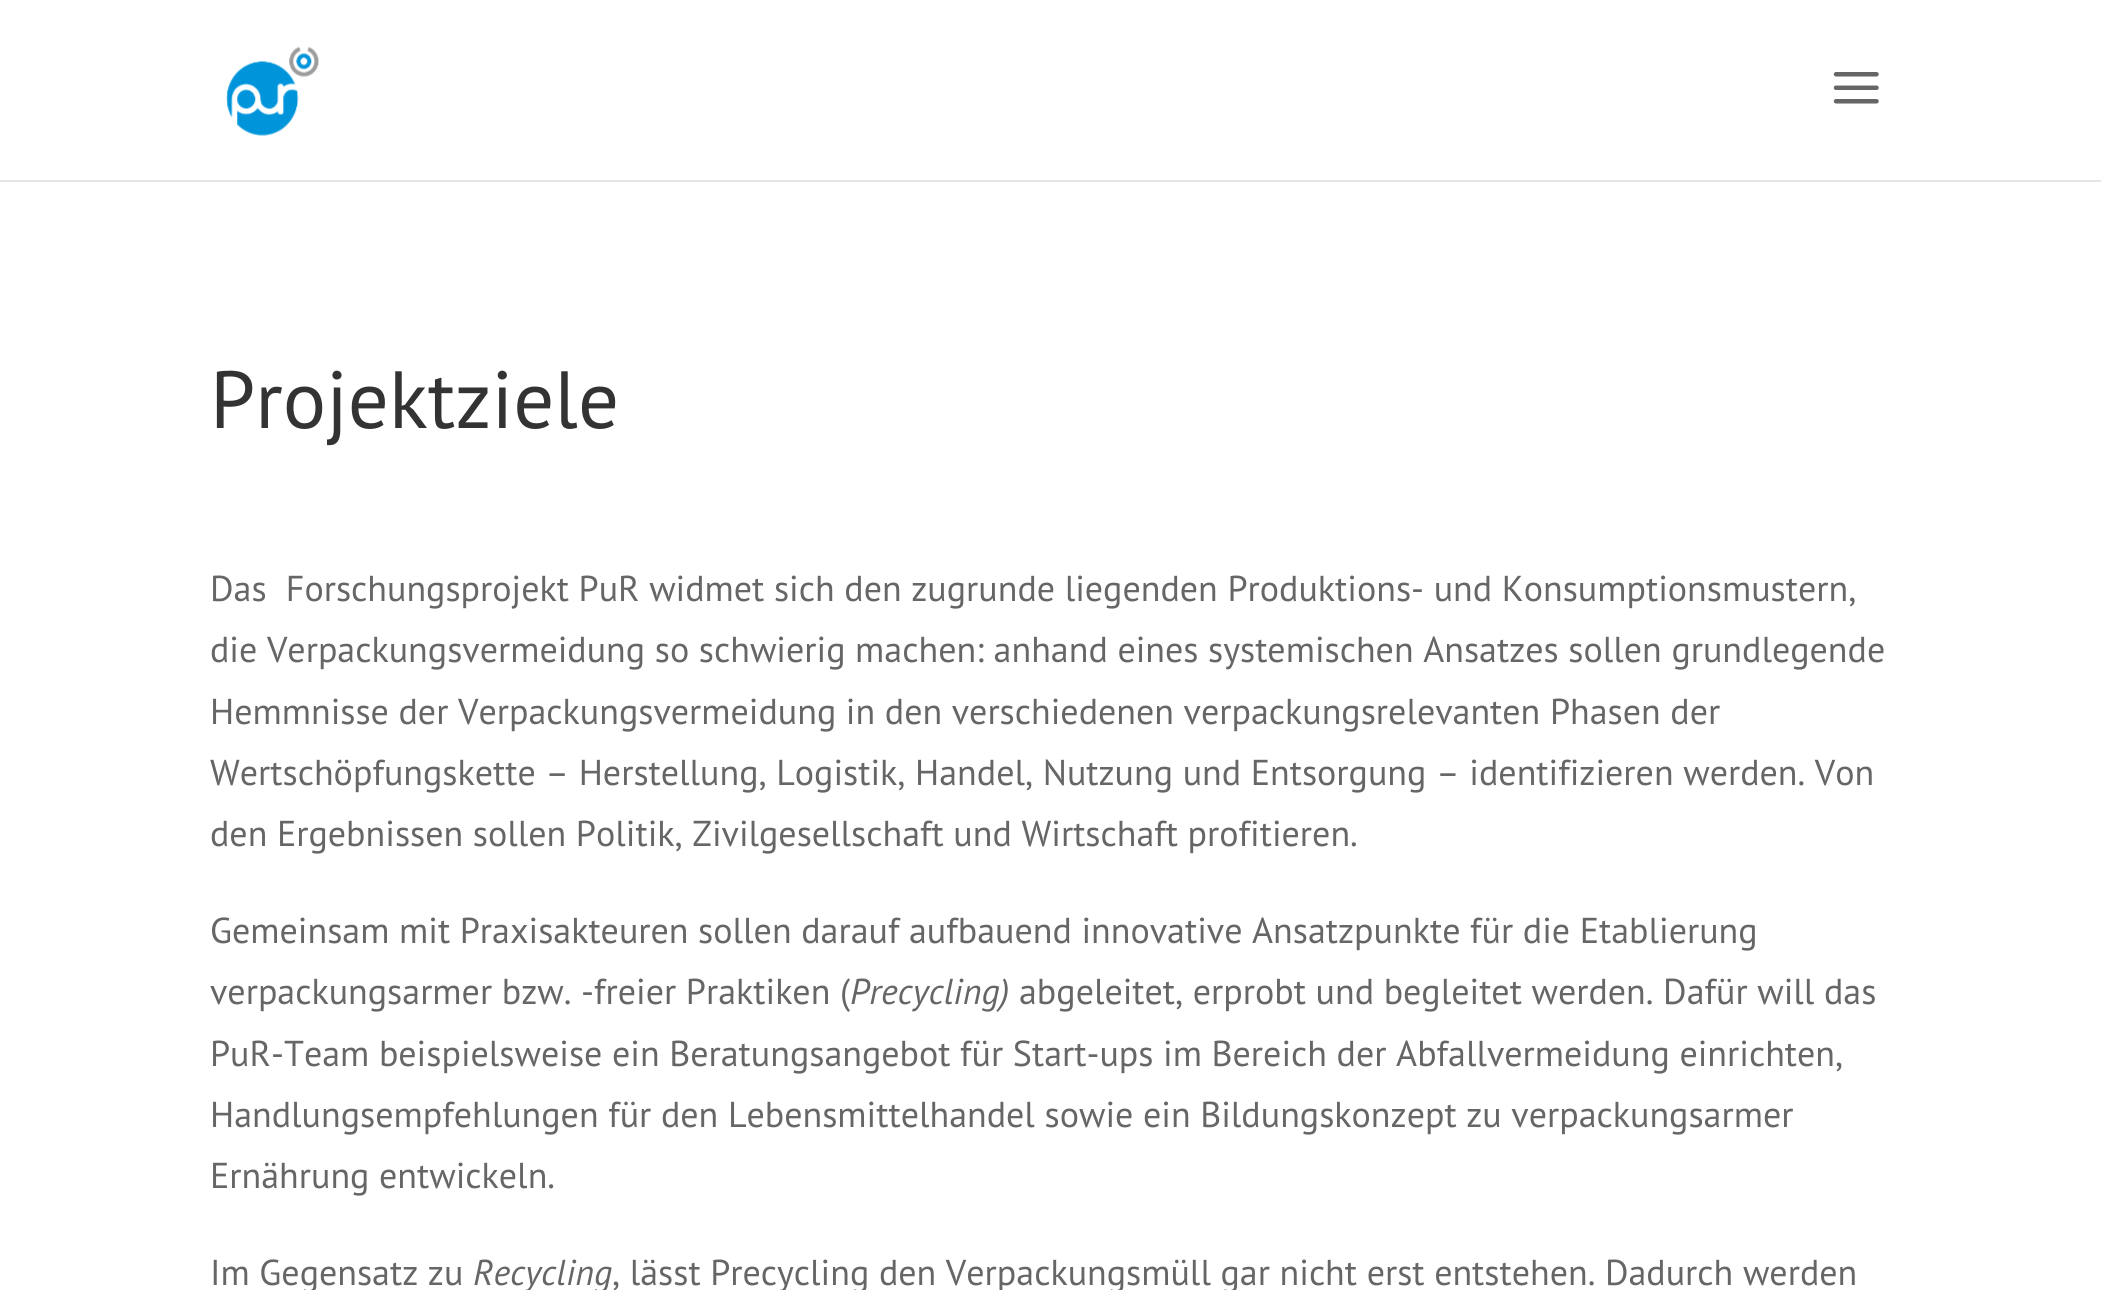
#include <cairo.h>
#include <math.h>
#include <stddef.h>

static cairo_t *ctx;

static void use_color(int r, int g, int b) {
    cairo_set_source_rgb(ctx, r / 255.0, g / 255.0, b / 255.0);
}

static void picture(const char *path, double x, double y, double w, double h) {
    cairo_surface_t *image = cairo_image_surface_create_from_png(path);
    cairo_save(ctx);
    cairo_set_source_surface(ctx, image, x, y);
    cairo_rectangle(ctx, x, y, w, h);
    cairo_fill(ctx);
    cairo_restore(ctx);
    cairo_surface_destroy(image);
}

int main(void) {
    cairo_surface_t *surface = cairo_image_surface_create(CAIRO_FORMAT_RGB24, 2101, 1290);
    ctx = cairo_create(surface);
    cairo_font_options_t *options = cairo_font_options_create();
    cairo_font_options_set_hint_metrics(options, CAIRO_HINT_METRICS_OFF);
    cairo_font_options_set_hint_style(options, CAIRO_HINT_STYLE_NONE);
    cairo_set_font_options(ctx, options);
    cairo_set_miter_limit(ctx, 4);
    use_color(255, 255, 255);
    cairo_paint(ctx);
    use_color(230, 230, 230);
    cairo_new_path(ctx);
    cairo_move_to(ctx, 0, 180);
    cairo_line_to(ctx, 0, 182);
    cairo_line_to(ctx, 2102, 182);
    cairo_line_to(ctx, 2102, 2);
    cairo_line_to(ctx, 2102, 180);
    cairo_close_path(ctx);
    cairo_fill(ctx);
    picture("img1.png", 226, 46, 93, 90);
    picture("img2.png", 1833, 72, 46, 32);
    cairo_select_font_face(ctx, "PT Sans", CAIRO_FONT_SLANT_NORMAL, CAIRO_FONT_WEIGHT_NORMAL);
    cairo_set_font_size(ctx, 81);
    use_color(51, 51, 51);
    cairo_move_to(ctx, 210, 428);
    cairo_show_text(ctx, "Projektziele");
    cairo_set_font_size(ctx, 36);
    use_color(102, 102, 102);
    cairo_move_to(ctx, 210, 601);
    cairo_show_text(ctx, "Das  Forschungsprojekt PuR widmet sich den zugrunde liegenden Produktions- und Konsumptionsmustern,");
    cairo_move_to(ctx, 210, 662);
    cairo_show_text(ctx, "die Verpackungsvermeidung so schwierig machen: anhand eines systemischen Ansatzes sollen grundlegende");
    cairo_move_to(ctx, 210, 724);
    cairo_show_text(ctx, "Hemmnisse der Verpackungsvermeidung in den verschiedenen verpackungsrelevanten Phasen der");
    cairo_move_to(ctx, 210, 785);
    cairo_show_text(ctx, "Wertschöpfungskette – Herstellung, Logistik, Handel, Nutzung und Entsorgung – identifizieren werden. Von");
    cairo_move_to(ctx, 210, 846);
    cairo_show_text(ctx, "den Ergebnissen sollen Politik, Zivilgesellschaft und Wirtschaft profitieren.");
    cairo_move_to(ctx, 210, 943);
    cairo_show_text(ctx, "Gemeinsam mit Praxisakteuren sollen darauf aufbauend innovative Ansatzpunkte für die Etablierung");
    cairo_move_to(ctx, 210, 1004);
    cairo_show_text(ctx, "verpackungsarmer bzw. -freier Praktiken (");
    cairo_select_font_face(ctx, "PT Sans", CAIRO_FONT_SLANT_ITALIC, CAIRO_FONT_WEIGHT_NORMAL);
    cairo_move_to(ctx, 850, 1004);
    cairo_show_text(ctx, "Precycling)");
    cairo_select_font_face(ctx, "PT Sans", CAIRO_FONT_SLANT_NORMAL, CAIRO_FONT_WEIGHT_NORMAL);
    cairo_move_to(ctx, 1019, 1004);
    cairo_show_text(ctx, "abgeleitet, erprobt und begleitet werden. Dafür will das");
    cairo_move_to(ctx, 210, 1066);
    cairo_show_text(ctx, "PuR-Team beispielsweise ein Beratungsangebot für Start-ups im Bereich der Abfallvermeidung einrichten,");
    cairo_move_to(ctx, 210, 1127);
    cairo_show_text(ctx, "Handlungsempfehlungen für den Lebensmittelhandel sowie ein Bildungskonzept zu verpackungsarmer");
    cairo_move_to(ctx, 210, 1188);
    cairo_show_text(ctx, "Ernährung entwickeln.");
    cairo_move_to(ctx, 210, 1285);
    cairo_show_text(ctx, "Im Gegensatz zu");
    cairo_select_font_face(ctx, "PT Sans", CAIRO_FONT_SLANT_ITALIC, CAIRO_FONT_WEIGHT_NORMAL);
    cairo_move_to(ctx, 473, 1285);
    cairo_show_text(ctx, "Recycling");
    cairo_select_font_face(ctx, "PT Sans", CAIRO_FONT_SLANT_NORMAL, CAIRO_FONT_WEIGHT_NORMAL);
    cairo_move_to(ctx, 612, 1285);
    cairo_show_text(ctx, ", lässt Precycling den Verpackungsmüll gar nicht erst entstehen. Dadurch werden");
    cairo_surface_write_to_png(surface, "result.png");
    cairo_font_options_destroy(options);
    cairo_destroy(ctx);
    cairo_surface_destroy(surface);
    return 0;
}
